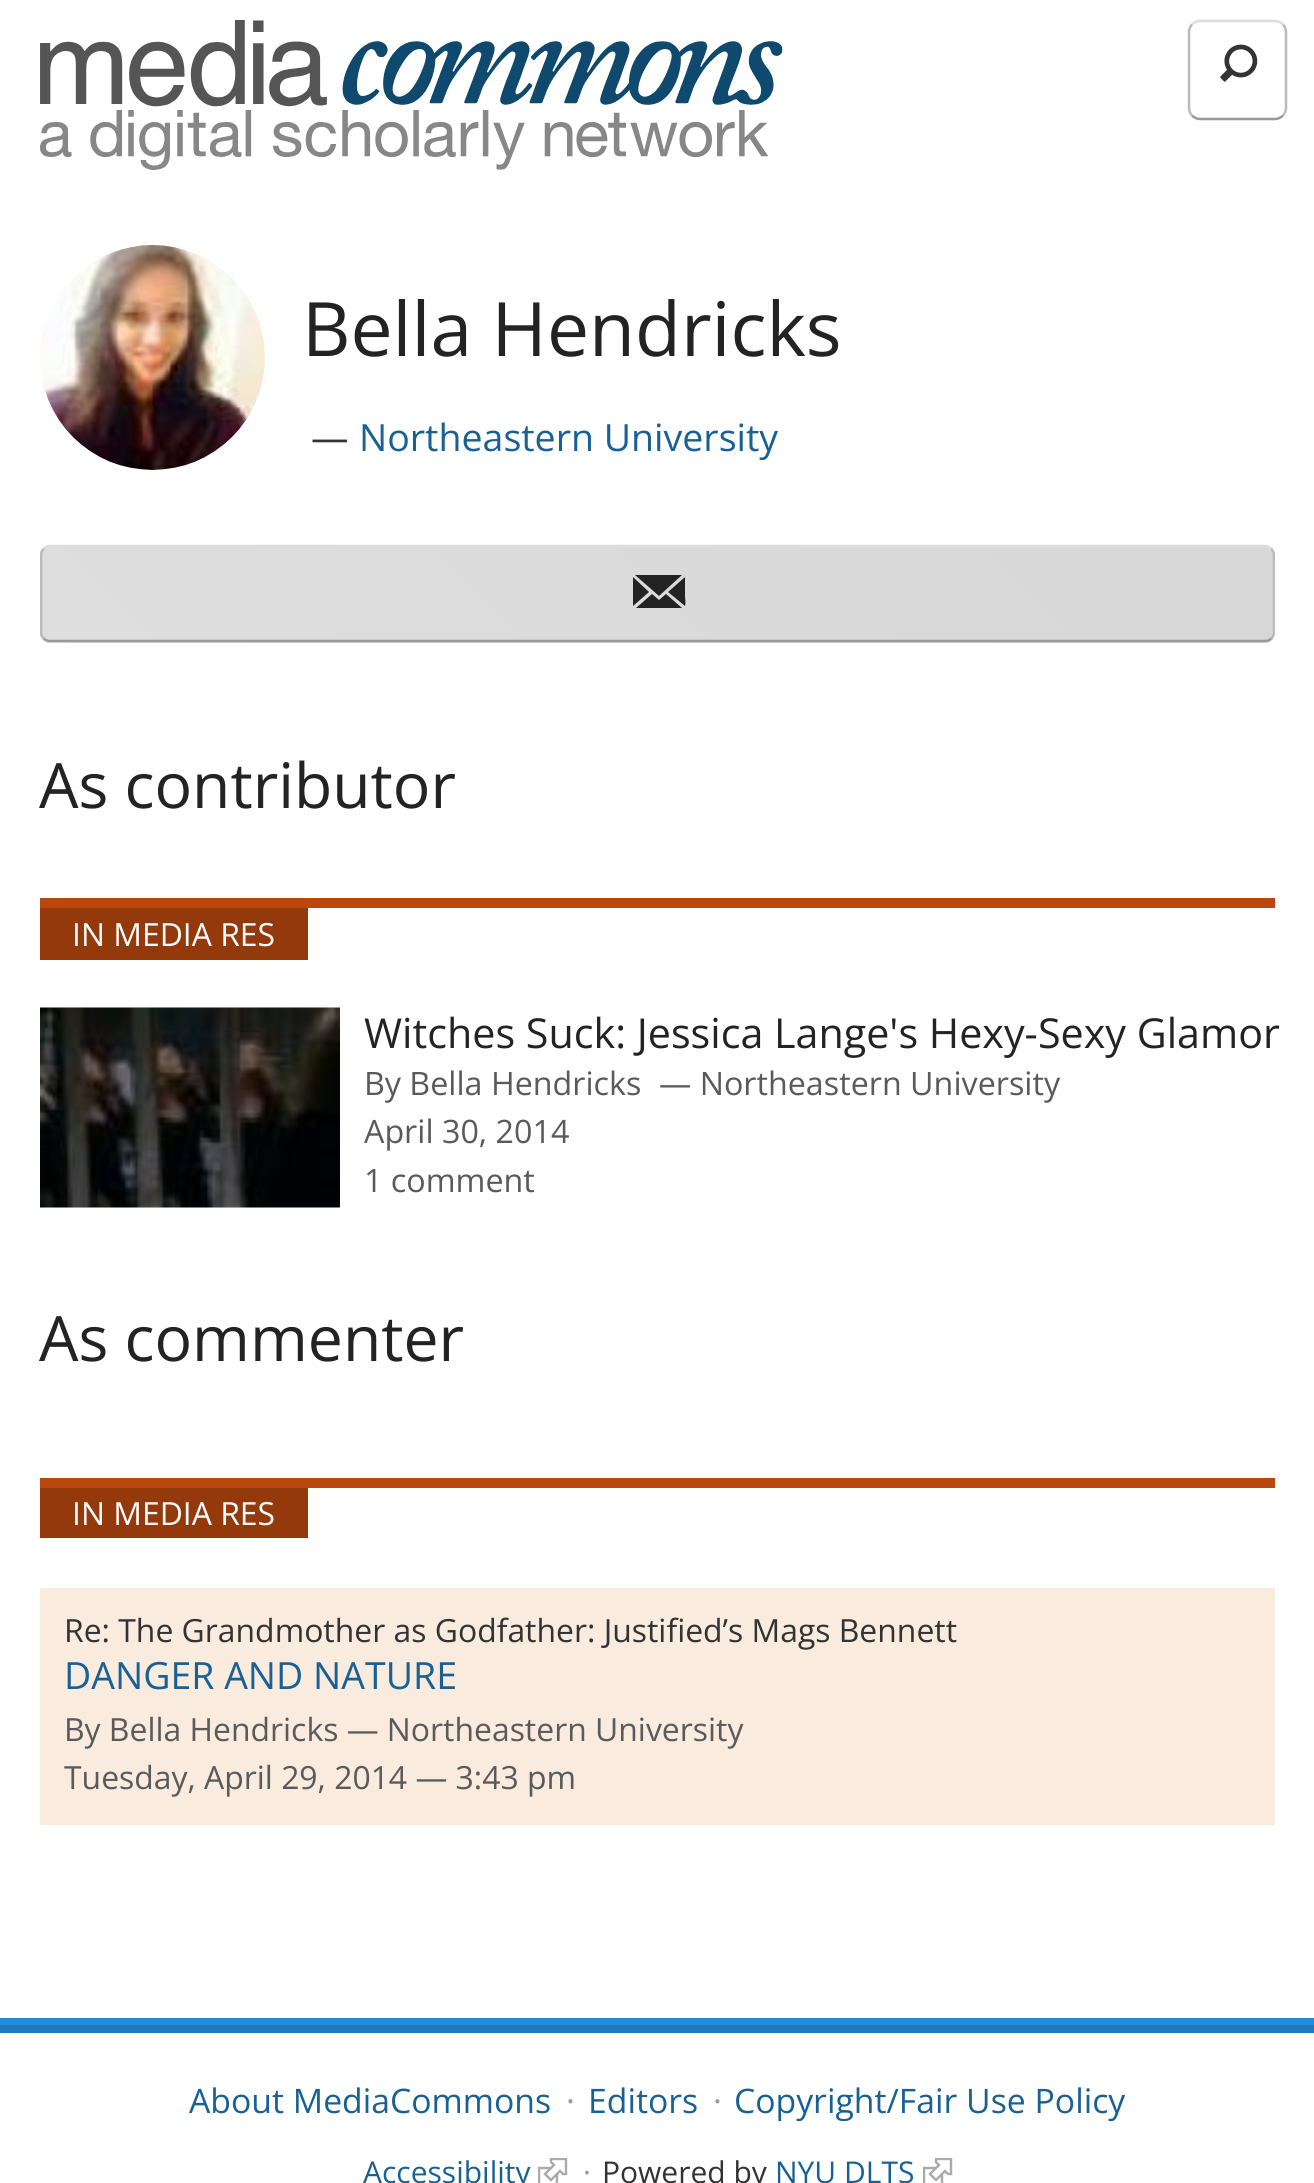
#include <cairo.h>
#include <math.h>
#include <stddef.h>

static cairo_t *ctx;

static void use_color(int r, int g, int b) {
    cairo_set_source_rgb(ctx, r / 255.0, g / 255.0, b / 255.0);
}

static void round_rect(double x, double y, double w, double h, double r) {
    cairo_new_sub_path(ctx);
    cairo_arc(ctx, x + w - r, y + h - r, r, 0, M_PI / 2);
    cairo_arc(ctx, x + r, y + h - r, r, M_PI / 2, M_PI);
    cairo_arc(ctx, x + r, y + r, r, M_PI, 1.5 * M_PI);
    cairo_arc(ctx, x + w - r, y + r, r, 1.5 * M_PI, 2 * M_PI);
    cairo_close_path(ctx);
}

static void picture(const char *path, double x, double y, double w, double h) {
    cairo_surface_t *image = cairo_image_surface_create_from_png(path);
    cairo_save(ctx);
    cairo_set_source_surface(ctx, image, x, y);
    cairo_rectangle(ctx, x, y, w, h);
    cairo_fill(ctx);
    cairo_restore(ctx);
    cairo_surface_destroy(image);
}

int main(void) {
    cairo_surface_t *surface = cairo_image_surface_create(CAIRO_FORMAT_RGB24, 1314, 2183);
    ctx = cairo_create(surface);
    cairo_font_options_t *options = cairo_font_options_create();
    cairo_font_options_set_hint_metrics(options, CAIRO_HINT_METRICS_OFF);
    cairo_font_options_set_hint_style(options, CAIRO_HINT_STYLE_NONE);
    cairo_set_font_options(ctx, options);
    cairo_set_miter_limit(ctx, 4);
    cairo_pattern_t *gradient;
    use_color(255, 255, 255);
    cairo_paint(ctx);
    picture("img1.png", 40, 20, 743, 150);
    cairo_new_path(ctx);
    cairo_move_to(ctx, 1192, 24.5);
    cairo_curve_to(ctx, 1194, 22.5, 1197, 21, 1200, 21);
    cairo_line_to(ctx, 1275, 21);
    cairo_curve_to(ctx, 1278, 21, 1281, 22.5, 1283, 24.5);
    use_color(221, 221, 221);
    cairo_set_line_width(ctx, 2.5);
    cairo_stroke(ctx);
    cairo_new_path(ctx);
    cairo_move_to(ctx, 1283, 24.5);
    cairo_curve_to(ctx, 1285, 26.5, 1286, 29.5, 1286, 32.5);
    cairo_line_to(ctx, 1286, 107.5);
    cairo_curve_to(ctx, 1286, 110.5, 1285, 113.5, 1283, 115.5);
    use_color(187, 187, 187);
    cairo_stroke(ctx);
    cairo_new_path(ctx);
    cairo_move_to(ctx, 1283, 115.5);
    cairo_curve_to(ctx, 1281, 117.5, 1278, 119, 1275, 119);
    cairo_line_to(ctx, 1200, 119);
    cairo_curve_to(ctx, 1197, 119, 1194, 117.5, 1192, 115.5);
    use_color(153, 153, 153);
    cairo_stroke(ctx);
    cairo_new_path(ctx);
    cairo_move_to(ctx, 1192, 115.5);
    cairo_curve_to(ctx, 1190, 113.5, 1189, 110.5, 1189, 107.5);
    cairo_line_to(ctx, 1189, 32.5);
    cairo_curve_to(ctx, 1189, 29.5, 1190, 26.5, 1192, 24.5);
    use_color(187, 187, 187);
    cairo_stroke(ctx);
    picture("img2.png", 1220, 44, 38, 38);
    picture("img3.png", 40, 245, 225, 225);
    cairo_select_font_face(ctx, "Open Sans", CAIRO_FONT_SLANT_NORMAL, CAIRO_FONT_WEIGHT_NORMAL);
    cairo_set_font_size(ctx, 75);
    use_color(35, 35, 35);
    cairo_move_to(ctx, 302, 356);
    cairo_show_text(ctx, "Bella Hendricks");
    cairo_set_font_size(ctx, 37.5);
    use_color(51, 51, 51);
    cairo_move_to(ctx, 311, 451);
    cairo_show_text(ctx, "—");
    use_color(25, 97, 149);
    cairo_move_to(ctx, 359, 451);
    cairo_show_text(ctx, "Northeastern University");
    cairo_save(ctx);
    round_rect(40, 545, 1235, 98, 10);
    cairo_clip(ctx);
    gradient = cairo_pattern_create_linear(327, 832, 988, 171);
    cairo_pattern_add_color_stop_rgba(gradient, 0, 0.871, 0.871, 0.871, 1);
    cairo_pattern_add_color_stop_rgba(gradient, 1, 0.843, 0.843, 0.843, 1);
    cairo_set_source(ctx, gradient);
    cairo_pattern_destroy(gradient);
    cairo_rectangle(ctx, 43, 545, 1230, 3);
    cairo_fill(ctx);
    gradient = cairo_pattern_create_linear(-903, 924, -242, 263);
    cairo_pattern_add_color_stop_rgba(gradient, 0, 0.871, 0.871, 0.871, 1);
    cairo_pattern_add_color_stop_rgba(gradient, 1, 0.843, 0.843, 0.843, 1);
    cairo_set_source(ctx, gradient);
    cairo_pattern_destroy(gradient);
    cairo_rectangle(ctx, 40, 548, 3, 92);
    cairo_fill(ctx);
    cairo_restore(ctx);
    gradient = cairo_pattern_create_linear(327, 924, 988, 263);
    cairo_pattern_add_color_stop_rgba(gradient, 0, 0.871, 0.871, 0.871, 1);
    cairo_pattern_add_color_stop_rgba(gradient, 1, 0.843, 0.843, 0.843, 1);
    cairo_set_source(ctx, gradient);
    cairo_pattern_destroy(gradient);
    cairo_rectangle(ctx, 43, 548, 1230, 92);
    cairo_fill(ctx);
    cairo_save(ctx);
    round_rect(40, 545, 1235, 98, 10);
    cairo_clip(ctx);
    gradient = cairo_pattern_create_linear(327, 1017, 988, 356);
    cairo_pattern_add_color_stop_rgba(gradient, 0, 0.871, 0.871, 0.871, 1);
    cairo_pattern_add_color_stop_rgba(gradient, 1, 0.843, 0.843, 0.843, 1);
    cairo_set_source(ctx, gradient);
    cairo_pattern_destroy(gradient);
    cairo_rectangle(ctx, 43, 640, 1230, 3);
    cairo_fill(ctx);
    cairo_restore(ctx);
    cairo_new_path(ctx);
    cairo_move_to(ctx, 44, 549);
    cairo_curve_to(ctx, 45.5, 547, 47.5, 546, 50, 546);
    cairo_line_to(ctx, 1265, 546);
    cairo_curve_to(ctx, 1267.5, 546, 1269.5, 547, 1271, 549);
    use_color(221, 221, 221);
    cairo_stroke(ctx);
    cairo_save(ctx);
    cairo_rectangle(ctx, 40, 245, 1235, 435);
    cairo_clip(ctx);
    cairo_new_path(ctx);
    cairo_move_to(ctx, 1271, 549);
    cairo_curve_to(ctx, 1273, 550.5, 1274, 552.5, 1274, 555);
    cairo_line_to(ctx, 1274, 632.5);
    cairo_curve_to(ctx, 1274, 635, 1273, 637, 1271, 638.5);
    use_color(187, 187, 187);
    cairo_stroke(ctx);
    cairo_restore(ctx);
    cairo_new_path(ctx);
    cairo_move_to(ctx, 1271, 638.5);
    cairo_curve_to(ctx, 1269.5, 640.5, 1267.5, 641, 1265, 641);
    cairo_line_to(ctx, 50, 641);
    cairo_curve_to(ctx, 47.5, 641, 45.5, 640.5, 44, 638.5);
    use_color(153, 153, 153);
    cairo_stroke(ctx);
    cairo_save(ctx);
    cairo_rectangle(ctx, 40, 245, 1235, 435);
    cairo_clip(ctx);
    cairo_new_path(ctx);
    cairo_move_to(ctx, 44, 638.5);
    cairo_curve_to(ctx, 42, 637, 41, 635, 41, 632.5);
    cairo_line_to(ctx, 41, 555);
    cairo_curve_to(ctx, 41, 552.5, 42, 550.5, 44, 549);
    use_color(187, 187, 187);
    cairo_stroke(ctx);
    cairo_restore(ctx);
    use_color(35, 35, 35);
    cairo_new_path(ctx);
    cairo_move_to(ctx, 659, 596);
    cairo_line_to(ctx, 682, 575);
    cairo_line_to(ctx, 635, 575);
    cairo_close_path(ctx);
    cairo_move_to(ctx, 685, 578);
    cairo_line_to(ctx, 685, 577);
    cairo_line_to(ctx, 668, 592);
    cairo_line_to(ctx, 685, 606);
    cairo_curve_to(ctx, 686, 603, 685, 599, 685, 596);
    cairo_close_path(ctx);
    cairo_move_to(ctx, 633, 577);
    cairo_line_to(ctx, 633, 606);
    cairo_line_to(ctx, 649, 592);
    cairo_close_path(ctx);
    cairo_move_to(ctx, 666, 594);
    cairo_line_to(ctx, 659, 600);
    cairo_line_to(ctx, 652, 594);
    cairo_line_to(ctx, 636, 608);
    cairo_line_to(ctx, 682, 608);
    cairo_close_path(ctx);
    cairo_fill(ctx);
    cairo_set_font_size(ctx, 62.5);
    cairo_move_to(ctx, 39, 808);
    cairo_show_text(ctx, "As contributor");
    use_color(185, 72, 15);
    cairo_rectangle(ctx, 40, 898, 1235, 10);
    cairo_fill(ctx);
    use_color(148, 57, 12);
    cairo_rectangle(ctx, 40, 908, 268, 52);
    cairo_fill(ctx);
    cairo_set_font_size(ctx, 31.9);
    use_color(255, 255, 255);
    cairo_move_to(ctx, 72, 946);
    cairo_show_text(ctx, "IN MEDIA RES");
    picture("img4.png", 40, 1007, 300, 201);
    cairo_set_font_size(ctx, 41.25);
    use_color(35, 35, 35);
    cairo_move_to(ctx, 364, 1048);
    cairo_show_text(ctx, "Witches Suck: Jessica Lange's Hexy-Sexy Glamor");
    cairo_set_font_size(ctx, 32.25);
    use_color(90, 90, 90);
    cairo_move_to(ctx, 364, 1095);
    cairo_show_text(ctx, "By Bella Hendricks");
    cairo_move_to(ctx, 659, 1095);
    cairo_show_text(ctx, "— Northeastern University");
    cairo_move_to(ctx, 364, 1143);
    cairo_show_text(ctx, "April 30, 2014");
    cairo_move_to(ctx, 364, 1192);
    cairo_show_text(ctx, "1 comment");
    cairo_set_font_size(ctx, 62.5);
    use_color(35, 35, 35);
    cairo_move_to(ctx, 39, 1361);
    cairo_show_text(ctx, "As commenter");
    use_color(185, 72, 15);
    cairo_rectangle(ctx, 40, 1478, 1235, 10);
    cairo_fill(ctx);
    use_color(148, 57, 12);
    cairo_rectangle(ctx, 40, 1488, 268, 50);
    cairo_fill(ctx);
    cairo_set_font_size(ctx, 31.9);
    use_color(255, 255, 255);
    cairo_move_to(ctx, 72, 1525);
    cairo_show_text(ctx, "IN MEDIA RES");
    use_color(249, 235, 221);
    cairo_rectangle(ctx, 40, 1588, 1235, 237);
    cairo_fill(ctx);
    use_color(51, 51, 51);
    cairo_move_to(ctx, 64, 1642);
    cairo_show_text(ctx, "Re: The Grandmother as Godfather: Justified’s Mags Bennett");
    cairo_set_font_size(ctx, 37.5);
    use_color(25, 97, 149);
    cairo_move_to(ctx, 64, 1689);
    cairo_show_text(ctx, "DANGER AND NATURE");
    cairo_set_font_size(ctx, 31.9);
    use_color(90, 90, 90);
    cairo_move_to(ctx, 64, 1741);
    cairo_show_text(ctx, "By Bella Hendricks — Northeastern University");
    cairo_move_to(ctx, 64, 1789);
    cairo_show_text(ctx, "Tuesday, April 29, 2014 — 3:43 pm");
    use_color(36, 140, 215);
    cairo_rectangle(ctx, 0, 2018, 1314, 7);
    cairo_fill(ctx);
    use_color(32, 123, 188);
    cairo_rectangle(ctx, 0, 2025, 1314, 8);
    cairo_fill(ctx);
    cairo_set_font_size(ctx, 33.75);
    use_color(25, 97, 149);
    cairo_move_to(ctx, 189, 2113);
    cairo_show_text(ctx, "About MediaCommons");
    use_color(153, 153, 153);
    cairo_move_to(ctx, 566, 2113);
    cairo_show_text(ctx, "·");
    use_color(25, 97, 149);
    cairo_move_to(ctx, 588, 2113);
    cairo_show_text(ctx, "Editors");
    use_color(153, 153, 153);
    cairo_move_to(ctx, 713, 2113);
    cairo_show_text(ctx, "·");
    use_color(25, 97, 149);
    cairo_move_to(ctx, 734, 2113);
    cairo_show_text(ctx, "Copyright/Fair Use Policy");
    cairo_set_font_size(ctx, 30);
    cairo_move_to(ctx, 363, 2183);
    cairo_show_text(ctx, "Accessibility");
    picture("img5.png", 538, 2158, 30, 25);
    use_color(153, 153, 153);
    cairo_move_to(ctx, 583, 2183);
    cairo_show_text(ctx, "·");
    use_color(51, 51, 51);
    cairo_move_to(ctx, 602, 2183);
    cairo_show_text(ctx, "Powered by");
    use_color(25, 97, 149);
    cairo_move_to(ctx, 775, 2183);
    cairo_show_text(ctx, "NYU DLTS");
    picture("img5.png", 923, 2158, 30, 25);
    cairo_surface_write_to_png(surface, "result.png");
    cairo_font_options_destroy(options);
    cairo_destroy(ctx);
    cairo_surface_destroy(surface);
    return 0;
}
